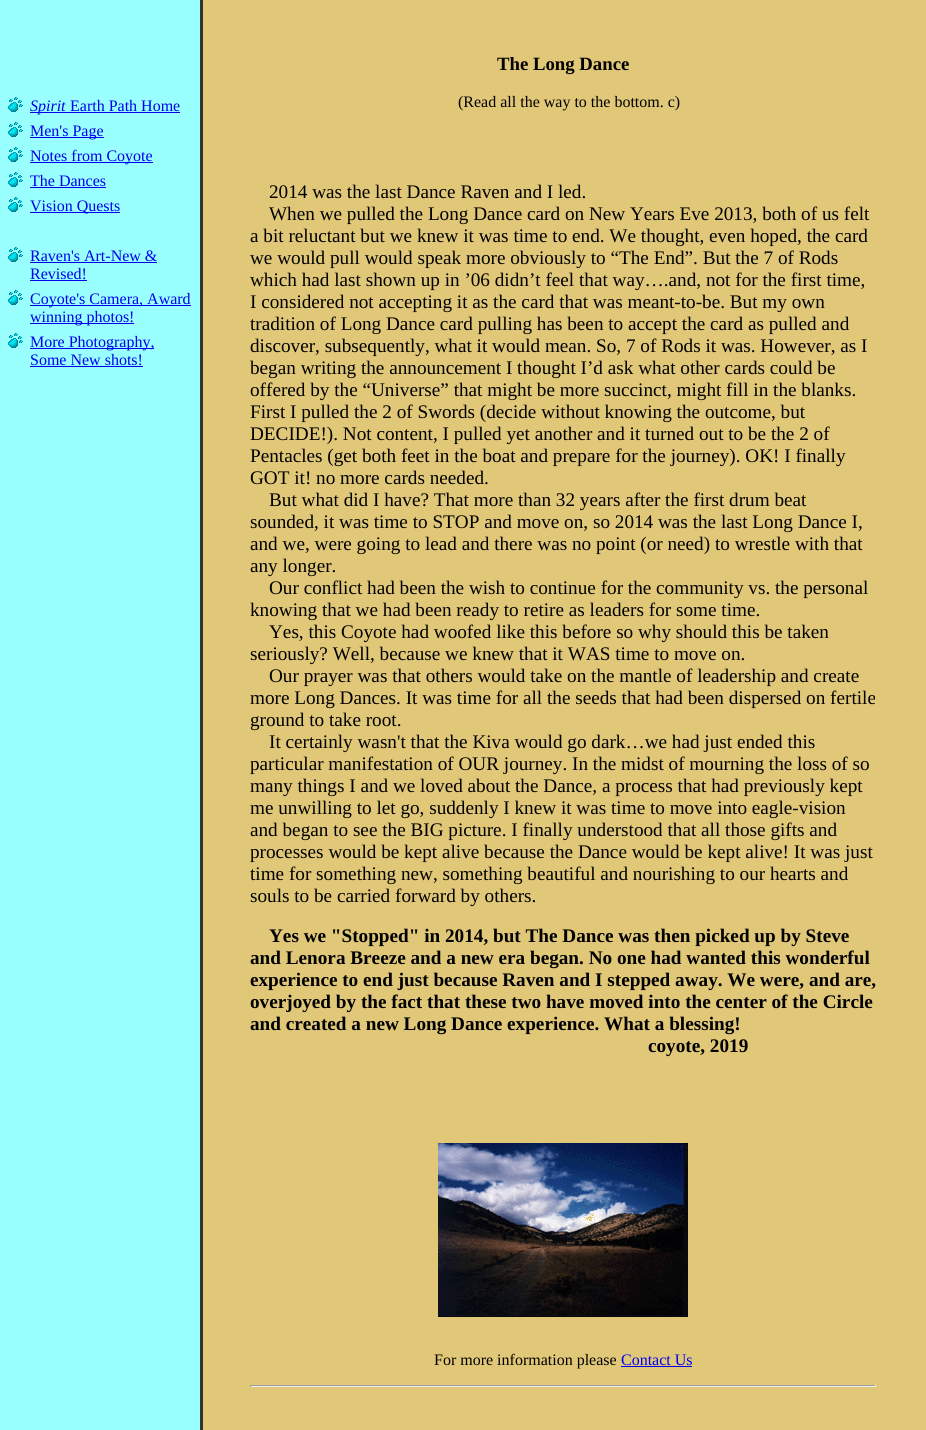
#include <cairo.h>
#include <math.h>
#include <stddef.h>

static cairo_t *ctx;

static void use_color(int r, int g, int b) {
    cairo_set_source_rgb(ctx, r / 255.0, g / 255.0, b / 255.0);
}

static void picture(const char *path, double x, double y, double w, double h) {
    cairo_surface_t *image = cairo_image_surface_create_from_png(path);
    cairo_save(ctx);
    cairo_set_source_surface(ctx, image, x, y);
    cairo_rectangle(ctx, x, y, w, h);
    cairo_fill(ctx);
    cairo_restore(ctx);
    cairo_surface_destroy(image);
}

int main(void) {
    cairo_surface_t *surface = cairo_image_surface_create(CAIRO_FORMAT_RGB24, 926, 1430);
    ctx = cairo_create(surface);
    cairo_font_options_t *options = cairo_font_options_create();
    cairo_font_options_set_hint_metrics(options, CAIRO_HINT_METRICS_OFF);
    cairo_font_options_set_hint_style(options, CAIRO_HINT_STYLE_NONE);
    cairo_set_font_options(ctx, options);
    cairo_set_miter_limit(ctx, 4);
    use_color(225, 199, 120);
    cairo_paint(ctx);
    use_color(153, 255, 255);
    cairo_rectangle(ctx, 0, 0, 200, 1430);
    cairo_fill(ctx);
    use_color(51, 51, 51);
    cairo_rectangle(ctx, 200, 0, 3, 1430);
    cairo_fill(ctx);
    picture("img1.png", 8, 97, 15, 15);
    use_color(0, 0, 238);
    cairo_rectangle(ctx, 30, 112, 150, 1);
    cairo_fill(ctx);
    cairo_select_font_face(ctx, "Liberation Serif", CAIRO_FONT_SLANT_ITALIC, CAIRO_FONT_WEIGHT_NORMAL);
    cairo_set_font_size(ctx, 16);
    cairo_move_to(ctx, 30, 111);
    cairo_show_text(ctx, "Spirit");
    cairo_select_font_face(ctx, "Liberation Serif", CAIRO_FONT_SLANT_NORMAL, CAIRO_FONT_WEIGHT_NORMAL);
    cairo_move_to(ctx, 70, 111);
    cairo_show_text(ctx, "Earth Path Home");
    picture("img1.png", 8, 122, 15, 15);
    cairo_rectangle(ctx, 30, 137, 74, 1);
    cairo_fill(ctx);
    cairo_move_to(ctx, 30, 136);
    cairo_show_text(ctx, "Men's Page");
    picture("img1.png", 8, 147, 15, 15);
    cairo_rectangle(ctx, 30, 162, 123, 1);
    cairo_fill(ctx);
    cairo_move_to(ctx, 30, 161);
    cairo_show_text(ctx, "Notes from Coyote");
    picture("img1.png", 8, 172, 15, 15);
    cairo_move_to(ctx, 30, 186);
    cairo_show_text(ctx, "The Dances");
    cairo_rectangle(ctx, 30, 187, 76, 1);
    cairo_fill(ctx);
    picture("img1.png", 8, 197, 15, 15);
    cairo_rectangle(ctx, 30, 212, 90, 1);
    cairo_fill(ctx);
    cairo_move_to(ctx, 30, 211);
    cairo_show_text(ctx, "Vision Quests");
    picture("img1.png", 8, 247, 15, 15);
    cairo_move_to(ctx, 30, 261);
    cairo_show_text(ctx, "Raven's Art-New &");
    cairo_rectangle(ctx, 30, 262, 127, 1);
    cairo_fill(ctx);
    cairo_move_to(ctx, 30, 279);
    cairo_show_text(ctx, "Revised!");
    cairo_rectangle(ctx, 30, 280, 57, 1);
    cairo_fill(ctx);
    picture("img1.png", 8, 290, 15, 15);
    cairo_rectangle(ctx, 30, 305, 161, 1);
    cairo_fill(ctx);
    cairo_move_to(ctx, 30, 304);
    cairo_show_text(ctx, "Coyote's Camera, Award");
    cairo_rectangle(ctx, 30, 323, 104, 1);
    cairo_fill(ctx);
    cairo_move_to(ctx, 30, 322);
    cairo_show_text(ctx, "winning photos!");
    picture("img1.png", 8, 333, 15, 15);
    cairo_rectangle(ctx, 30, 348, 124, 1);
    cairo_fill(ctx);
    cairo_move_to(ctx, 30, 347);
    cairo_show_text(ctx, "More Photography,");
    cairo_move_to(ctx, 30, 365);
    cairo_show_text(ctx, "Some New shots!");
    cairo_rectangle(ctx, 30, 366, 113, 1);
    cairo_fill(ctx);
    cairo_select_font_face(ctx, "Liberation Serif", CAIRO_FONT_SLANT_NORMAL, CAIRO_FONT_WEIGHT_BOLD);
    cairo_set_font_size(ctx, 18.75);
    use_color(0, 0, 0);
    cairo_move_to(ctx, 497, 70);
    cairo_show_text(ctx, "The Long Dance");
    cairo_select_font_face(ctx, "Liberation Serif", CAIRO_FONT_SLANT_NORMAL, CAIRO_FONT_WEIGHT_NORMAL);
    cairo_set_font_size(ctx, 16);
    cairo_move_to(ctx, 458, 107);
    cairo_show_text(ctx, "(Read all the way to the bottom. c)");
    cairo_set_font_size(ctx, 19.2);
    cairo_move_to(ctx, 269, 198);
    cairo_show_text(ctx, "2014 was the last Dance Raven and I led.");
    cairo_move_to(ctx, 269, 220);
    cairo_show_text(ctx, "When we pulled the Long Dance card on New Years Eve 2013, both of us felt");
    cairo_move_to(ctx, 250, 242);
    cairo_show_text(ctx, "a bit reluctant but we knew it was time to end. We thought, even hoped, the card");
    cairo_move_to(ctx, 250, 264);
    cairo_show_text(ctx, "we would pull would speak more obviously to “The End”. But the 7 of Rods");
    cairo_move_to(ctx, 250, 286);
    cairo_show_text(ctx, "which had last shown up in ’06 didn’t feel that way….and, not for the first time,");
    cairo_move_to(ctx, 250, 308);
    cairo_show_text(ctx, "I considered not accepting it as the card that was meant-to-be. But my own");
    cairo_move_to(ctx, 250, 330);
    cairo_show_text(ctx, "tradition of Long Dance card pulling has been to accept the card as pulled and");
    cairo_move_to(ctx, 250, 352);
    cairo_show_text(ctx, "discover, subsequently, what it would mean. So, 7 of Rods it was. However, as I");
    cairo_move_to(ctx, 250, 374);
    cairo_show_text(ctx, "began writing the announcement I thought I’d ask what other cards could be");
    cairo_move_to(ctx, 250, 396);
    cairo_show_text(ctx, "offered by the “Universe” that might be more succinct, might fill in the blanks.");
    cairo_move_to(ctx, 250, 418);
    cairo_show_text(ctx, "First I pulled the 2 of Swords (decide without knowing the outcome, but");
    cairo_move_to(ctx, 250, 440);
    cairo_show_text(ctx, "DECIDE!). Not content, I pulled yet another and it turned out to be the 2 of");
    cairo_move_to(ctx, 250, 462);
    cairo_show_text(ctx, "Pentacles (get both feet in the boat and prepare for the journey). OK! I finally");
    cairo_move_to(ctx, 250, 484);
    cairo_show_text(ctx, "GOT it! no more cards needed.");
    cairo_move_to(ctx, 269, 506);
    cairo_show_text(ctx, "But what did I have? That more than 32 years after the first drum beat");
    cairo_move_to(ctx, 250, 528);
    cairo_show_text(ctx, "sounded, it was time to STOP and move on, so 2014 was the last Long Dance I,");
    cairo_move_to(ctx, 250, 550);
    cairo_show_text(ctx, "and we, were going to lead and there was no point (or need) to wrestle with that");
    cairo_move_to(ctx, 250, 572);
    cairo_show_text(ctx, "any longer.");
    cairo_move_to(ctx, 269, 594);
    cairo_show_text(ctx, "Our conflict had been the wish to continue for the community vs. the personal");
    cairo_move_to(ctx, 250, 616);
    cairo_show_text(ctx, "knowing that we had been ready to retire as leaders for some time.");
    cairo_move_to(ctx, 269, 638);
    cairo_show_text(ctx, "Yes, this Coyote had woofed like this before so why should this be taken");
    cairo_move_to(ctx, 250, 660);
    cairo_show_text(ctx, "seriously? Well, because we knew that it WAS time to move on.");
    cairo_move_to(ctx, 269, 682);
    cairo_show_text(ctx, "Our prayer was that others would take on the mantle of leadership and create");
    cairo_move_to(ctx, 250, 704);
    cairo_show_text(ctx, "more Long Dances. It was time for all the seeds that had been dispersed on fertile");
    cairo_move_to(ctx, 250, 726);
    cairo_show_text(ctx, "ground to take root.");
    cairo_move_to(ctx, 269, 748);
    cairo_show_text(ctx, "It certainly wasn't that the Kiva would go dark…we had just ended this");
    cairo_move_to(ctx, 250, 770);
    cairo_show_text(ctx, "particular manifestation of OUR journey. In the midst of mourning the loss of so");
    cairo_move_to(ctx, 250, 792);
    cairo_show_text(ctx, "many things I and we loved about the Dance, a process that had previously kept");
    cairo_move_to(ctx, 250, 814);
    cairo_show_text(ctx, "me unwilling to let go, suddenly I knew it was time to move into eagle-vision");
    cairo_move_to(ctx, 250, 836);
    cairo_show_text(ctx, "and began to see the BIG picture. I finally understood that all those gifts and");
    cairo_move_to(ctx, 250, 858);
    cairo_show_text(ctx, "processes would be kept alive because the Dance would be kept alive! It was just");
    cairo_move_to(ctx, 250, 880);
    cairo_show_text(ctx, "time for something new, something beautiful and nourishing to our hearts and");
    cairo_move_to(ctx, 250, 902);
    cairo_show_text(ctx, "souls to be carried forward by others.");
    cairo_select_font_face(ctx, "Liberation Serif", CAIRO_FONT_SLANT_NORMAL, CAIRO_FONT_WEIGHT_BOLD);
    cairo_move_to(ctx, 269, 942);
    cairo_show_text(ctx, "Yes we \"Stopped\" in 2014, but The Dance was then picked up by Steve");
    cairo_move_to(ctx, 250, 964);
    cairo_show_text(ctx, "and Lenora Breeze and a new era began. No one had wanted this wonderful");
    cairo_move_to(ctx, 250, 986);
    cairo_show_text(ctx, "experience to end just because Raven and I stepped away. We were, and are,");
    cairo_move_to(ctx, 250, 1008);
    cairo_show_text(ctx, "overjoyed by the fact that these two have moved into the center of the Circle");
    cairo_move_to(ctx, 250, 1030);
    cairo_show_text(ctx, "and created a new Long Dance experience. What a blessing!");
    cairo_move_to(ctx, 648, 1052);
    cairo_show_text(ctx, "coyote, 2019");
    picture("img2.png", 438, 1143, 250, 174);
    cairo_select_font_face(ctx, "Liberation Serif", CAIRO_FONT_SLANT_NORMAL, CAIRO_FONT_WEIGHT_NORMAL);
    cairo_set_font_size(ctx, 16);
    cairo_move_to(ctx, 434, 1365);
    cairo_show_text(ctx, "For more information please");
    use_color(0, 0, 238);
    cairo_move_to(ctx, 621, 1365);
    cairo_show_text(ctx, "Contact Us");
    cairo_rectangle(ctx, 621, 1366, 71, 1);
    cairo_fill(ctx);
    use_color(159, 159, 159);
    cairo_rectangle(ctx, 250, 1385, 626, 1);
    cairo_fill(ctx);
    use_color(238, 238, 238);
    cairo_rectangle(ctx, 875, 1385, 1, 2);
    cairo_fill(ctx);
    cairo_rectangle(ctx, 250, 1386, 626, 1);
    cairo_fill(ctx);
    use_color(159, 159, 159);
    cairo_rectangle(ctx, 250, 1385, 1, 2);
    cairo_fill(ctx);
    cairo_surface_write_to_png(surface, "result.png");
    cairo_font_options_destroy(options);
    cairo_destroy(ctx);
    cairo_surface_destroy(surface);
    return 0;
}
